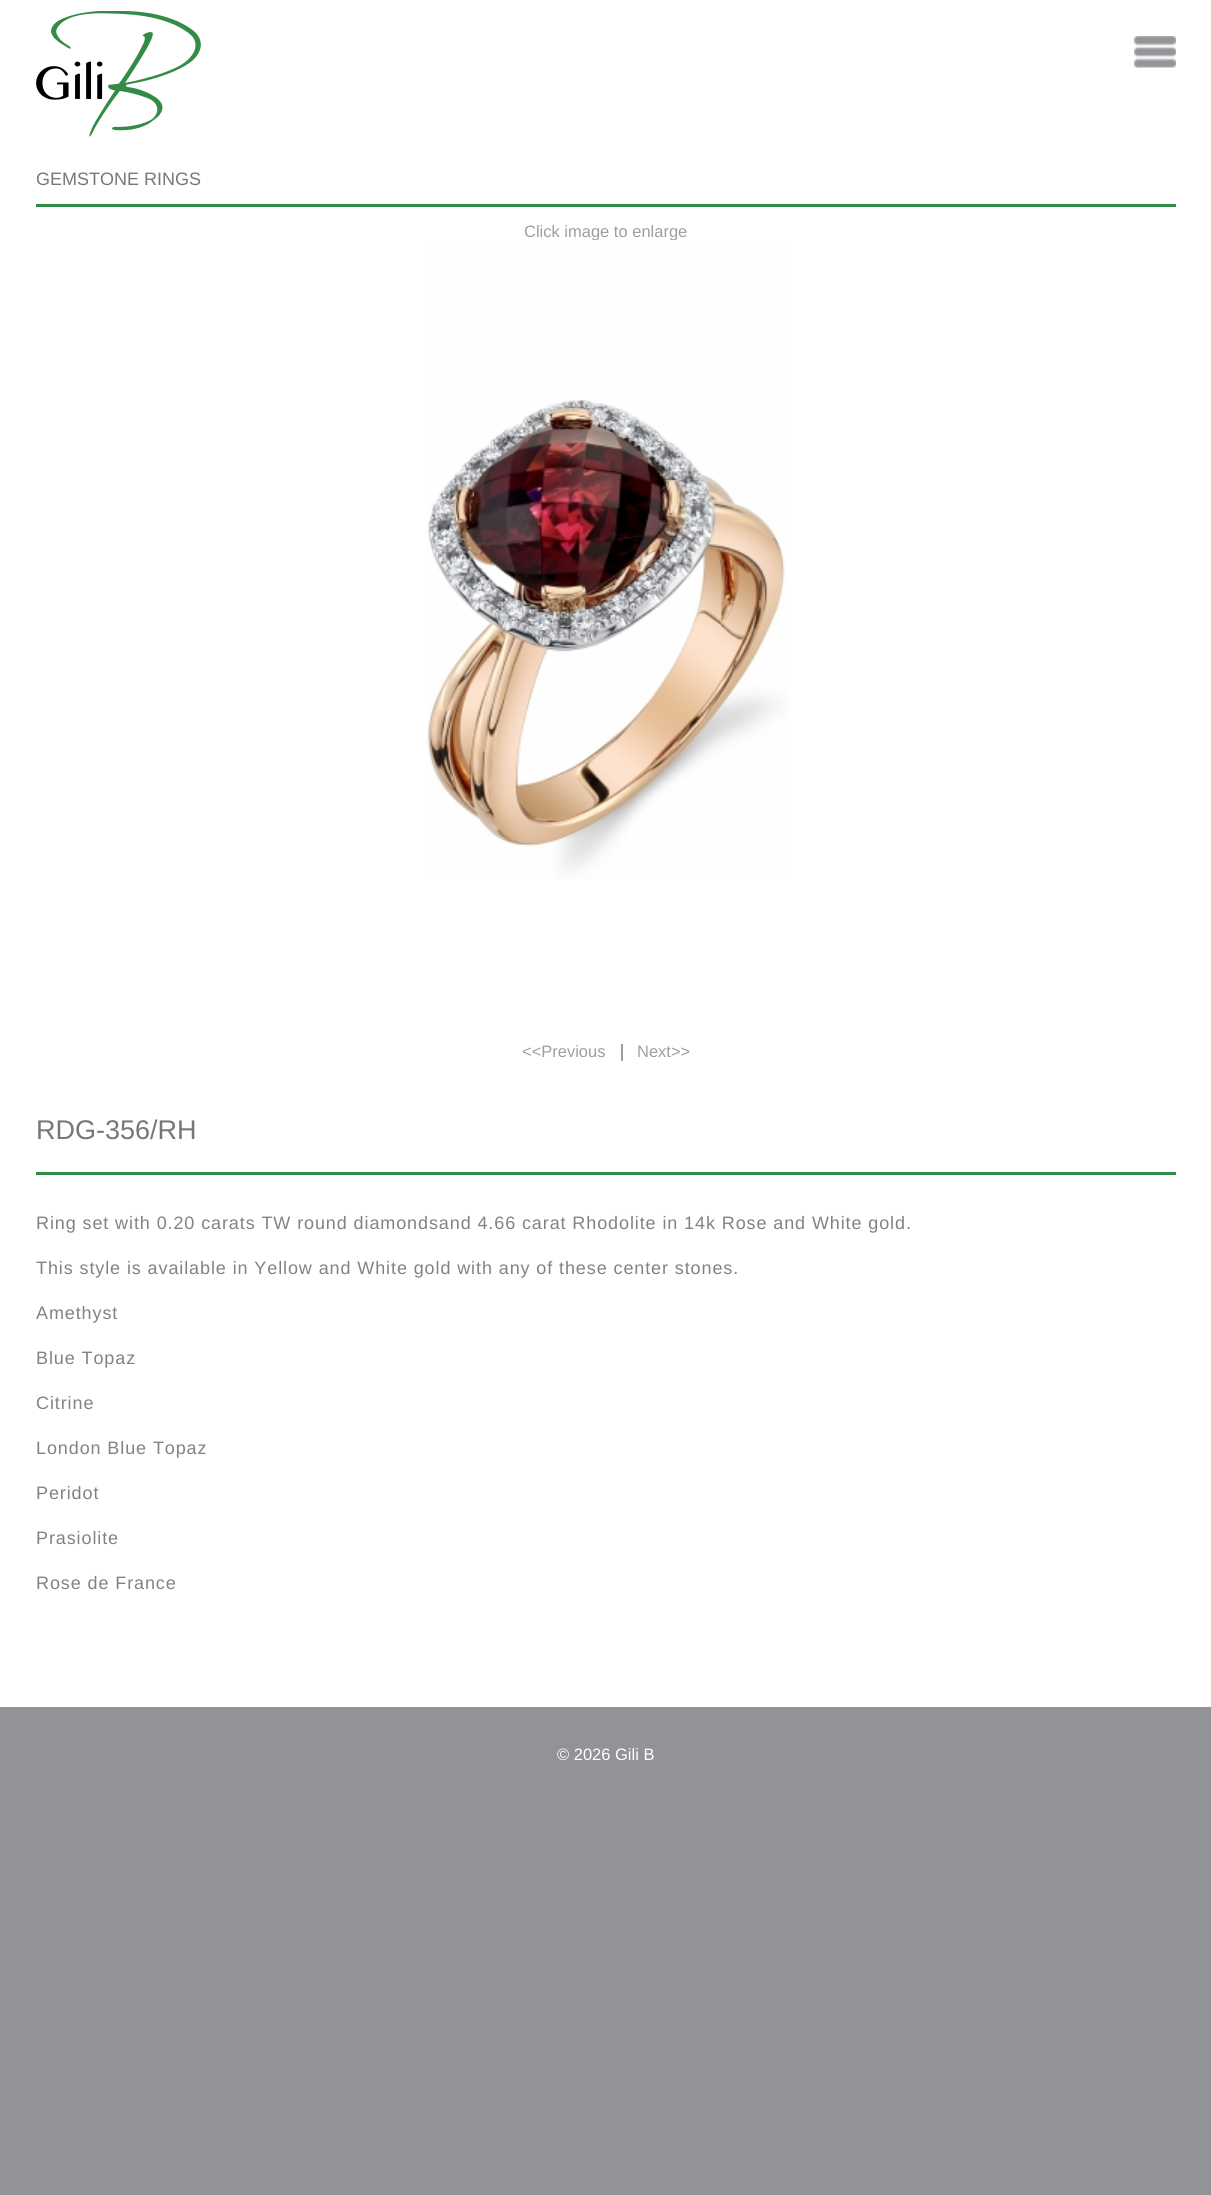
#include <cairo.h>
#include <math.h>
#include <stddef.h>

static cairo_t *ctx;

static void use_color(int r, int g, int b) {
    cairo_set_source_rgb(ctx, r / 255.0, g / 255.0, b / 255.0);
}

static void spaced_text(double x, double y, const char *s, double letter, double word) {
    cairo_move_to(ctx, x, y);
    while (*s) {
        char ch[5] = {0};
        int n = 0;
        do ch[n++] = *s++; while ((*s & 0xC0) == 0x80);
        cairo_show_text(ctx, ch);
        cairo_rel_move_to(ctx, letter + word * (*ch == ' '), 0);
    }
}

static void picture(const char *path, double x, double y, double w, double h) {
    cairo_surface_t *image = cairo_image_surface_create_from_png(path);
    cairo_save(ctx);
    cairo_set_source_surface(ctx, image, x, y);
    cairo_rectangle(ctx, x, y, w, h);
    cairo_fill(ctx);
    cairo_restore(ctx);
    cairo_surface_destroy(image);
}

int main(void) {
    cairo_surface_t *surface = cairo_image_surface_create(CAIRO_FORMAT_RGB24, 1211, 2195);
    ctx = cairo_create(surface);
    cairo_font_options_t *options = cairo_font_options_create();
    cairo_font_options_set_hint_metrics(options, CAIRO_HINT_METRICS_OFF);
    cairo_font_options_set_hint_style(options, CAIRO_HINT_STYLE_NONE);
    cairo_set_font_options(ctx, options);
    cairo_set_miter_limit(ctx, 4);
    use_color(146, 147, 150);
    cairo_paint(ctx);
    use_color(255, 255, 255);
    cairo_rectangle(ctx, 0, 0, 1211, 1707);
    cairo_fill(ctx);
    picture("img1.png", 36, 11, 165, 126);
    picture("img2.png", 1134, 36, 42, 32);
    cairo_select_font_face(ctx, "Liberation Sans", CAIRO_FONT_SLANT_NORMAL, CAIRO_FONT_WEIGHT_NORMAL);
    cairo_set_font_size(ctx, 18);
    use_color(119, 119, 119);
    cairo_move_to(ctx, 36, 185);
    cairo_show_text(ctx, "GEMSTONE RINGS");
    use_color(47, 139, 71);
    cairo_rectangle(ctx, 36, 204, 1140, 3);
    cairo_fill(ctx);
    cairo_set_font_size(ctx, 16.5);
    use_color(158, 158, 161);
    cairo_move_to(ctx, 524, 237);
    cairo_show_text(ctx, "Click image to enlarge");
    picture("img3.png", 426, 240, 363, 640);
    cairo_rectangle(ctx, 621, 1044, 2, 17);
    cairo_fill(ctx);
    cairo_move_to(ctx, 522, 1057);
    cairo_show_text(ctx, "<<Previous");
    cairo_move_to(ctx, 637, 1057);
    cairo_show_text(ctx, "Next>>");
    cairo_set_font_size(ctx, 27);
    use_color(119, 119, 119);
    cairo_move_to(ctx, 36, 1139);
    cairo_show_text(ctx, "RDG-356/RH");
    use_color(47, 139, 71);
    cairo_rectangle(ctx, 36, 1172, 1140, 3);
    cairo_fill(ctx);
    cairo_set_font_size(ctx, 18);
    use_color(128, 130, 133);
    spaced_text(36, 1229, "Ring set with 0.20 carats TW round diamondsand 4.66 carat Rhodolite in 14k Rose and White gold.", 0.9, 0);
    spaced_text(36, 1274, "This style is available in Yellow and White gold with any of these center stones.", 0.9, 0);
    spaced_text(36, 1319, "Amethyst", 0.9, 0);
    spaced_text(36, 1364, "Blue Topaz", 0.9, 0);
    spaced_text(36, 1409, "Citrine", 0.9, 0);
    spaced_text(36, 1454, "London Blue Topaz", 0.9, 0);
    spaced_text(36, 1499, "Peridot", 0.9, 0);
    spaced_text(36, 1544, "Prasiolite", 0.9, 0);
    spaced_text(36, 1589, "Rose de France", 0.9, 0);
    cairo_set_font_size(ctx, 16.5);
    use_color(255, 255, 255);
    cairo_move_to(ctx, 557, 1760);
    cairo_show_text(ctx, "© 2026 Gili B");
    cairo_surface_write_to_png(surface, "result.png");
    cairo_font_options_destroy(options);
    cairo_destroy(ctx);
    cairo_surface_destroy(surface);
    return 0;
}
